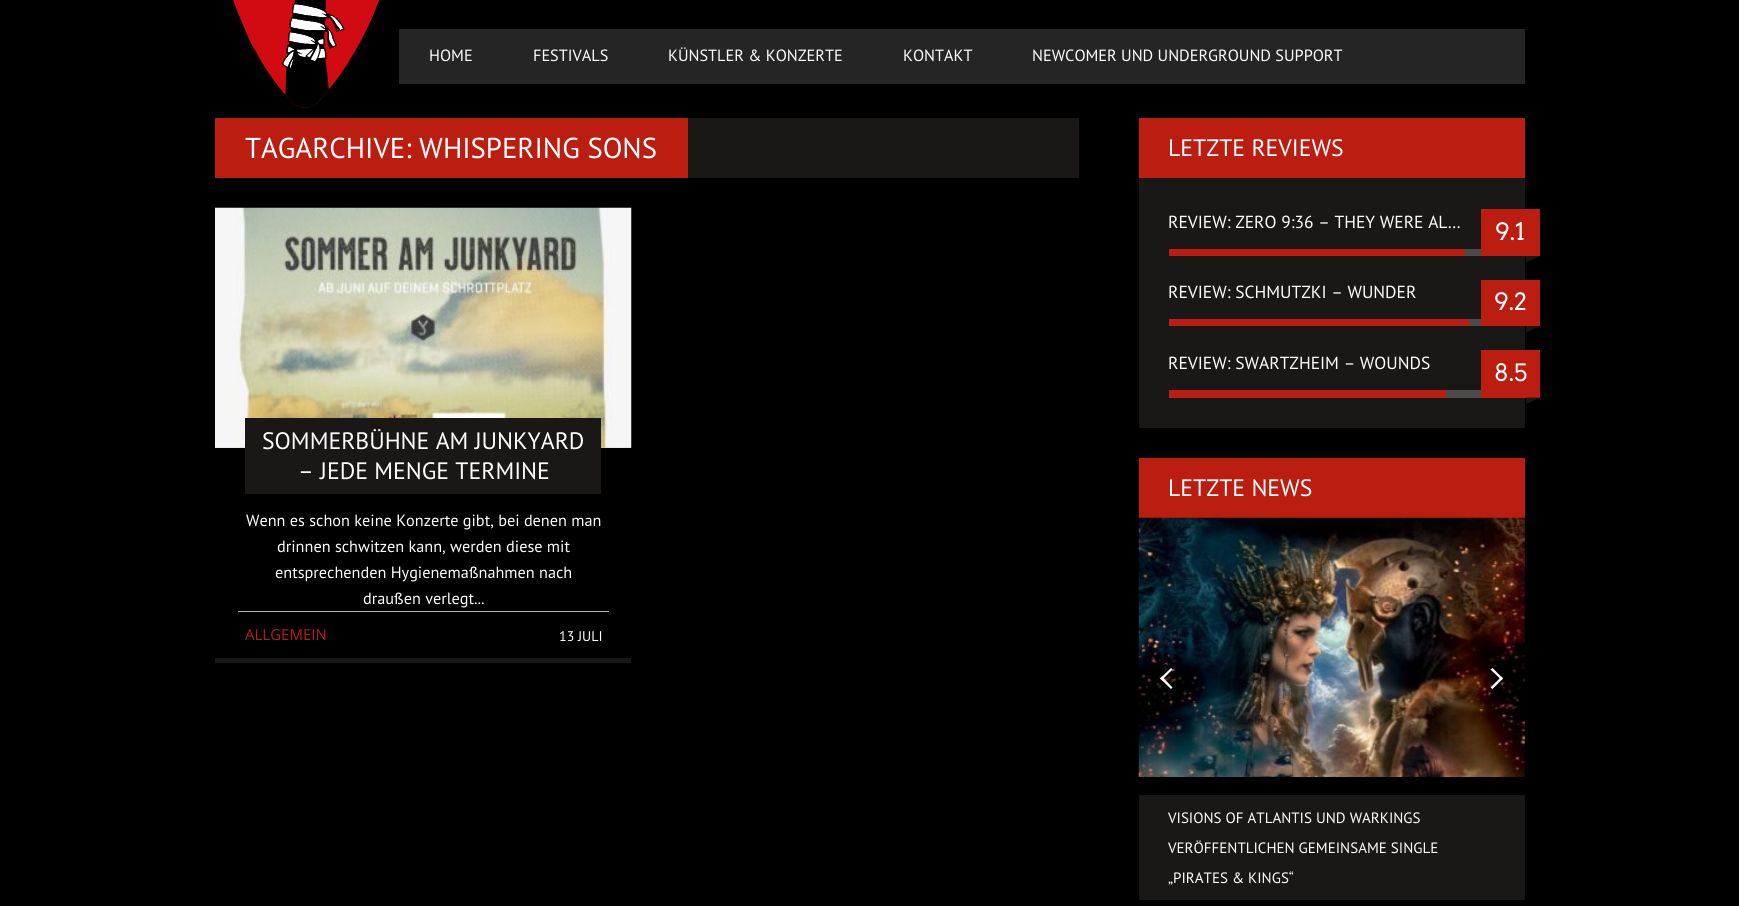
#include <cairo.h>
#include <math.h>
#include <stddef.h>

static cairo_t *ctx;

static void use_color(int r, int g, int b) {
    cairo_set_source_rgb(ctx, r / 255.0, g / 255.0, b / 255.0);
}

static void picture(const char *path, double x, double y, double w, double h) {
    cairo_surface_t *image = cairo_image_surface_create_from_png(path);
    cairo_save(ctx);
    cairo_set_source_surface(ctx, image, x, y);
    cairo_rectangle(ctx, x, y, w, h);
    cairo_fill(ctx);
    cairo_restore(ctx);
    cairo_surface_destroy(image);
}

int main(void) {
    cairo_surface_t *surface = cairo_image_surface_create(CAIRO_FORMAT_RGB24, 1739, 906);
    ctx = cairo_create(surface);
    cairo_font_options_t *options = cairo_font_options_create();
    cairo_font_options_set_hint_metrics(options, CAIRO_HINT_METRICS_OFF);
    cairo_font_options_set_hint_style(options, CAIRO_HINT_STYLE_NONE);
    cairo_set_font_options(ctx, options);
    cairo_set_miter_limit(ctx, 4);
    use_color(0, 0, 0);
    cairo_paint(ctx);
    picture("img1.png", 233, 0, 146, 108);
    use_color(38, 37, 37);
    cairo_rectangle(ctx, 399, 29, 1126, 55);
    cairo_fill(ctx);
    cairo_select_font_face(ctx, "PT Sans", CAIRO_FONT_SLANT_NORMAL, CAIRO_FONT_WEIGHT_NORMAL);
    cairo_set_font_size(ctx, 16.25);
    use_color(255, 255, 255);
    cairo_move_to(ctx, 429, 61);
    cairo_show_text(ctx, "HOME");
    cairo_move_to(ctx, 533, 61);
    cairo_show_text(ctx, "FESTIVALS");
    cairo_move_to(ctx, 668, 61);
    cairo_show_text(ctx, "KÜNSTLER & KONZERTE");
    cairo_move_to(ctx, 903, 61);
    cairo_show_text(ctx, "KONTAKT");
    cairo_move_to(ctx, 1032, 61);
    cairo_show_text(ctx, "NEWCOMER UND UNDERGROUND SUPPORT");
    use_color(26, 23, 23);
    cairo_rectangle(ctx, 688, 118, 391, 60);
    cairo_fill(ctx);
    use_color(187, 30, 16);
    cairo_rectangle(ctx, 215, 118, 473, 60);
    cairo_fill(ctx);
    cairo_set_font_size(ctx, 28.75);
    use_color(255, 255, 255);
    cairo_move_to(ctx, 245, 158);
    cairo_show_text(ctx, "TAGARCHIVE: WHISPERING SONS");
    use_color(204, 204, 204);
    cairo_rectangle(ctx, 215, 447, 416, 1);
    cairo_fill(ctx);
    picture("img2.png", 215, 207, 417, 241);
    use_color(26, 23, 23);
    cairo_rectangle(ctx, 245, 418, 356, 76);
    cairo_fill(ctx);
    cairo_set_font_size(ctx, 23.75);
    use_color(255, 255, 255);
    cairo_move_to(ctx, 262, 449);
    cairo_show_text(ctx, "SOMMERBÜHNE AM JUNKYARD");
    cairo_move_to(ctx, 298, 479);
    cairo_show_text(ctx, "– JEDE MENGE TERMINE");
    cairo_set_font_size(ctx, 16.25);
    cairo_move_to(ctx, 246, 526);
    cairo_show_text(ctx, "Wenn es schon keine Konzerte gibt, bei denen man");
    cairo_move_to(ctx, 277, 552);
    cairo_show_text(ctx, "drinnen schwitzen kann, werden diese mit");
    cairo_move_to(ctx, 275, 578);
    cairo_show_text(ctx, "entsprechenden Hygienemaßnahmen nach");
    cairo_move_to(ctx, 363, 604);
    cairo_show_text(ctx, "draußen verlegt...");
    use_color(26, 23, 23);
    cairo_rectangle(ctx, 215, 658, 416, 5);
    cairo_fill(ctx);
    use_color(179, 179, 179);
    cairo_rectangle(ctx, 238, 611, 371, 1);
    cairo_fill(ctx);
    cairo_select_font_face(ctx, "Open Sans", CAIRO_FONT_SLANT_NORMAL, CAIRO_FONT_WEIGHT_NORMAL);
    cairo_set_font_size(ctx, 15);
    use_color(187, 30, 16);
    cairo_move_to(ctx, 245, 640);
    cairo_show_text(ctx, "ALLGEMEIN");
    cairo_select_font_face(ctx, "PT Sans", CAIRO_FONT_SLANT_NORMAL, CAIRO_FONT_WEIGHT_NORMAL);
    cairo_set_font_size(ctx, 14);
    use_color(255, 255, 255);
    cairo_move_to(ctx, 559, 641);
    cairo_show_text(ctx, "13 JULI");
    use_color(187, 30, 16);
    cairo_rectangle(ctx, 1139, 118, 386, 60);
    cairo_fill(ctx);
    cairo_set_font_size(ctx, 23.75);
    use_color(255, 255, 255);
    cairo_move_to(ctx, 1168, 156);
    cairo_show_text(ctx, "LETZTE REVIEWS");
    use_color(26, 23, 23);
    cairo_rectangle(ctx, 1139, 178, 386, 250);
    cairo_fill(ctx);
    cairo_set_font_size(ctx, 17.5);
    use_color(255, 255, 255);
    cairo_move_to(ctx, 1168, 228);
    cairo_show_text(ctx, "REVIEW: ZERO 9:36 – THEY WERE AL…");
    use_color(187, 30, 16);
    cairo_rectangle(ctx, 1481, 209, 59, 47);
    cairo_fill(ctx);
    cairo_select_font_face(ctx, "Arvo", CAIRO_FONT_SLANT_NORMAL, CAIRO_FONT_WEIGHT_NORMAL);
    cairo_set_font_size(ctx, 23.75);
    use_color(255, 255, 255);
    cairo_move_to(ctx, 1495, 240);
    cairo_show_text(ctx, "9.1");
    use_color(26, 23, 23);
    cairo_new_path(ctx);
    cairo_move_to(ctx, 1526, 256);
    cairo_line_to(ctx, 1540, 256);
    cairo_line_to(ctx, 1526, 262.5);
    cairo_close_path(ctx);
    cairo_fill(ctx);
    use_color(76, 74, 74);
    cairo_rectangle(ctx, 1465, 249, 16, 7);
    cairo_fill(ctx);
    use_color(187, 30, 16);
    cairo_rectangle(ctx, 1169, 249, 296, 7);
    cairo_fill(ctx);
    cairo_select_font_face(ctx, "PT Sans", CAIRO_FONT_SLANT_NORMAL, CAIRO_FONT_WEIGHT_NORMAL);
    cairo_set_font_size(ctx, 17.5);
    use_color(255, 255, 255);
    cairo_move_to(ctx, 1168, 298);
    cairo_show_text(ctx, "REVIEW: SCHMUTZKI – WUNDER");
    use_color(187, 30, 16);
    cairo_rectangle(ctx, 1481, 280, 59, 46);
    cairo_fill(ctx);
    cairo_select_font_face(ctx, "Arvo", CAIRO_FONT_SLANT_NORMAL, CAIRO_FONT_WEIGHT_NORMAL);
    cairo_set_font_size(ctx, 23.75);
    use_color(255, 255, 255);
    cairo_move_to(ctx, 1494, 310);
    cairo_show_text(ctx, "9.2");
    use_color(26, 23, 23);
    cairo_new_path(ctx);
    cairo_move_to(ctx, 1526, 326);
    cairo_line_to(ctx, 1540, 326);
    cairo_line_to(ctx, 1526, 332.5);
    cairo_close_path(ctx);
    cairo_fill(ctx);
    use_color(76, 74, 74);
    cairo_rectangle(ctx, 1469, 319, 12, 7);
    cairo_fill(ctx);
    use_color(187, 30, 16);
    cairo_rectangle(ctx, 1169, 319, 300, 7);
    cairo_fill(ctx);
    cairo_select_font_face(ctx, "PT Sans", CAIRO_FONT_SLANT_NORMAL, CAIRO_FONT_WEIGHT_NORMAL);
    cairo_set_font_size(ctx, 17.5);
    use_color(255, 255, 255);
    cairo_move_to(ctx, 1168, 369);
    cairo_show_text(ctx, "REVIEW: SWARTZHEIM – WOUNDS");
    use_color(187, 30, 16);
    cairo_rectangle(ctx, 1481, 350, 59, 48);
    cairo_fill(ctx);
    cairo_select_font_face(ctx, "Arvo", CAIRO_FONT_SLANT_NORMAL, CAIRO_FONT_WEIGHT_NORMAL);
    cairo_set_font_size(ctx, 23.75);
    use_color(255, 255, 255);
    cairo_move_to(ctx, 1494, 381);
    cairo_show_text(ctx, "8.5");
    use_color(26, 23, 23);
    cairo_new_path(ctx);
    cairo_move_to(ctx, 1526, 397.5);
    cairo_line_to(ctx, 1540, 397.5);
    cairo_line_to(ctx, 1526, 404);
    cairo_close_path(ctx);
    cairo_fill(ctx);
    use_color(76, 74, 74);
    cairo_rectangle(ctx, 1446, 390, 35, 8);
    cairo_fill(ctx);
    use_color(187, 30, 16);
    cairo_rectangle(ctx, 1169, 390, 277, 8);
    cairo_fill(ctx);
    cairo_rectangle(ctx, 1139, 458, 386, 60);
    cairo_fill(ctx);
    cairo_select_font_face(ctx, "PT Sans", CAIRO_FONT_SLANT_NORMAL, CAIRO_FONT_WEIGHT_NORMAL);
    use_color(255, 255, 255);
    cairo_move_to(ctx, 1168, 496);
    cairo_show_text(ctx, "LETZTE NEWS");
    picture("img3.png", 1138, 517, 387, 260);
    cairo_new_path(ctx);
    cairo_move_to(ctx, 1162, 676.5);
    cairo_line_to(ctx, 1172.5, 687.5);
    cairo_line_to(ctx, 1171, 689);
    cairo_line_to(ctx, 1160, 678.5);
    cairo_close_path(ctx);
    cairo_fill(ctx);
    cairo_new_path(ctx);
    cairo_move_to(ctx, 1171, 668);
    cairo_line_to(ctx, 1172.5, 669.5);
    cairo_line_to(ctx, 1162, 680);
    cairo_line_to(ctx, 1160, 678.5);
    cairo_close_path(ctx);
    cairo_fill(ctx);
    cairo_new_path(ctx);
    cairo_move_to(ctx, 1490.5, 669.5);
    cairo_line_to(ctx, 1492.5, 668);
    cairo_line_to(ctx, 1503, 678.5);
    cairo_line_to(ctx, 1501.5, 680);
    cairo_close_path(ctx);
    cairo_fill(ctx);
    cairo_new_path(ctx);
    cairo_move_to(ctx, 1490.5, 687.5);
    cairo_line_to(ctx, 1501.5, 676.5);
    cairo_line_to(ctx, 1503, 678.5);
    cairo_line_to(ctx, 1492.5, 689);
    cairo_close_path(ctx);
    cairo_fill(ctx);
    use_color(26, 23, 23);
    cairo_rectangle(ctx, 1139, 795, 386, 105);
    cairo_fill(ctx);
    cairo_set_font_size(ctx, 15);
    use_color(255, 255, 255);
    cairo_move_to(ctx, 1168, 823);
    cairo_show_text(ctx, "VISIONS OF ATLANTIS UND WARKINGS");
    cairo_move_to(ctx, 1168, 853);
    cairo_show_text(ctx, "VERÖFFENTLICHEN GEMEINSAME SINGLE");
    cairo_move_to(ctx, 1168, 883);
    cairo_show_text(ctx, "„PIRATES & KINGS“");
    cairo_surface_write_to_png(surface, "result.png");
    cairo_font_options_destroy(options);
    cairo_destroy(ctx);
    cairo_surface_destroy(surface);
    return 0;
}
